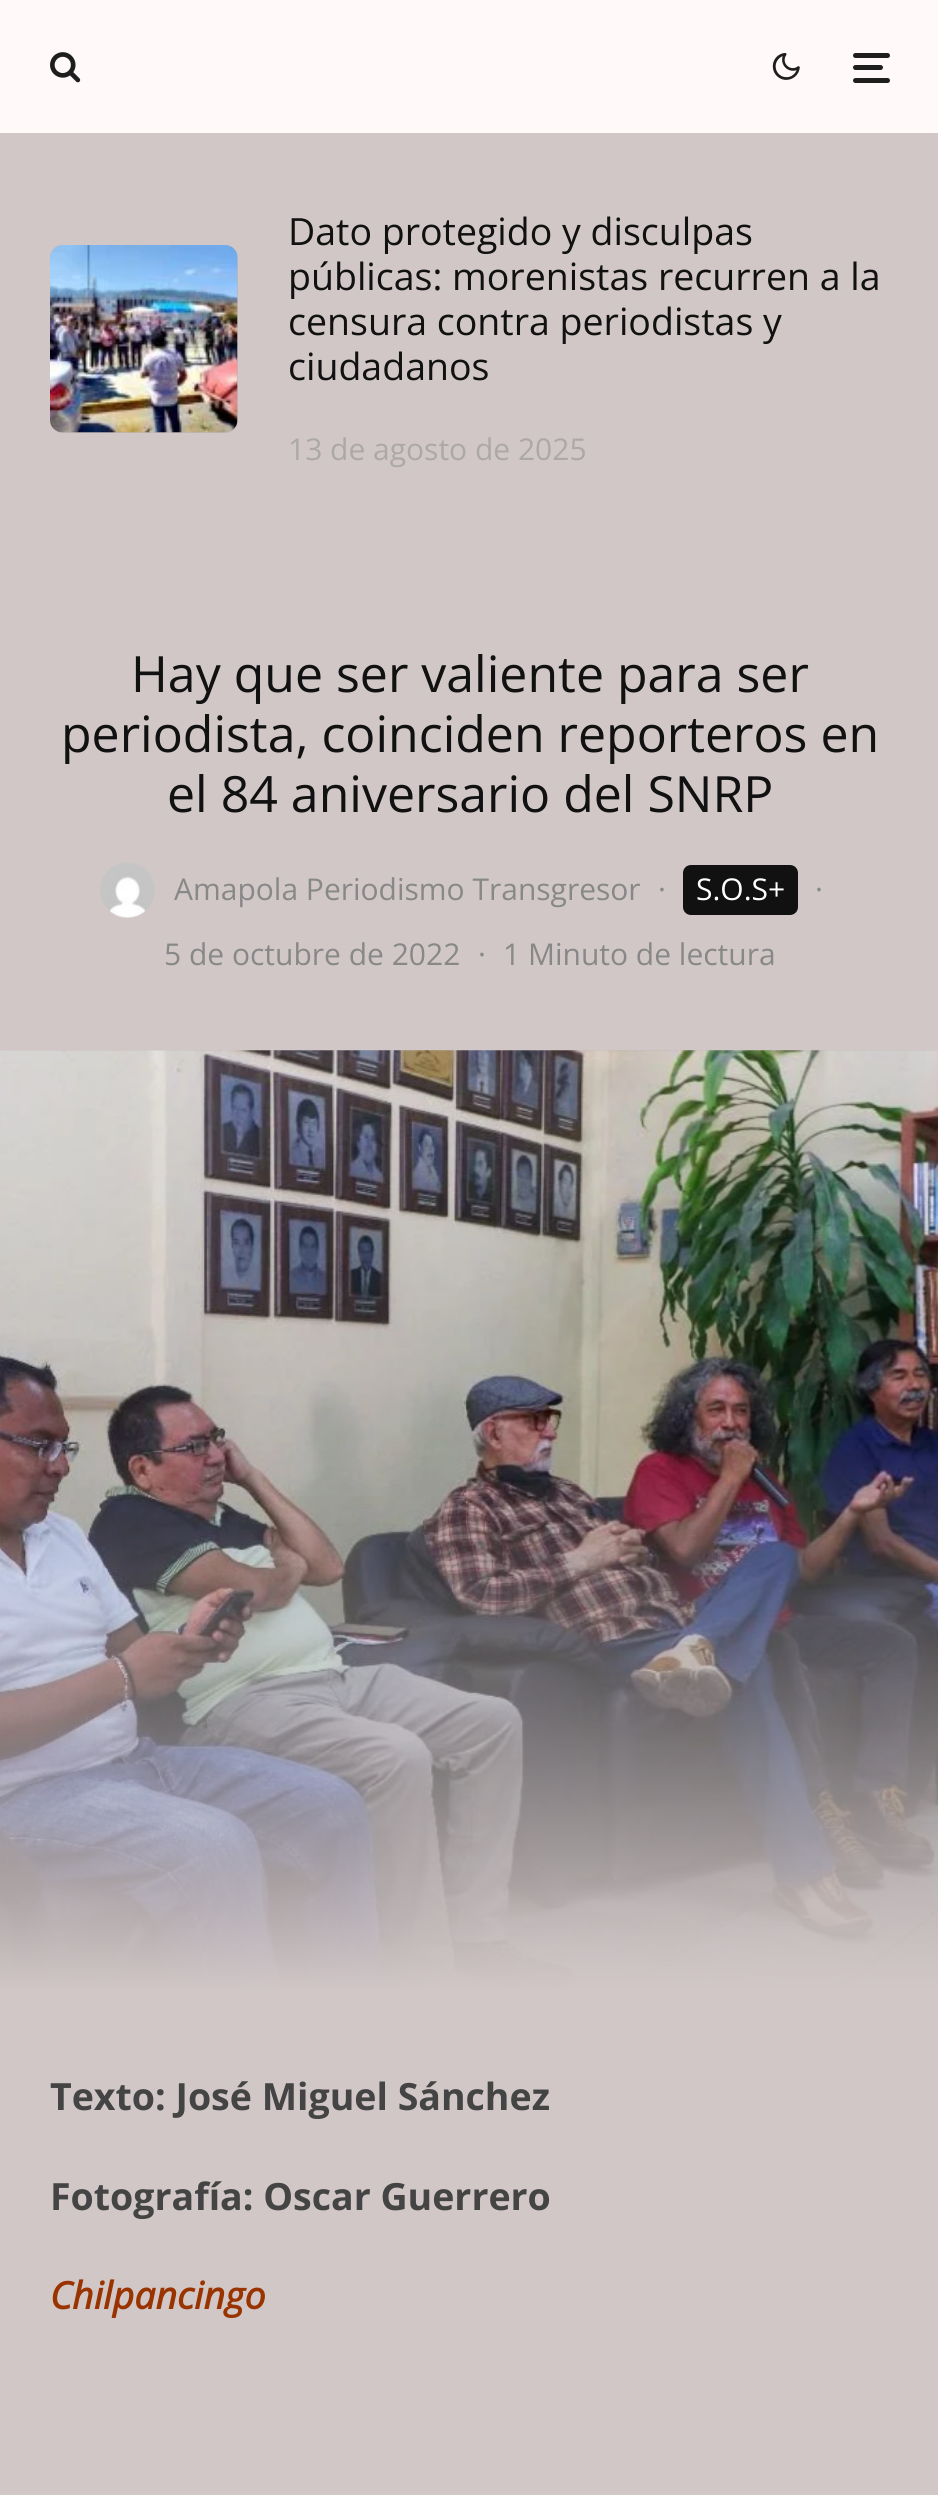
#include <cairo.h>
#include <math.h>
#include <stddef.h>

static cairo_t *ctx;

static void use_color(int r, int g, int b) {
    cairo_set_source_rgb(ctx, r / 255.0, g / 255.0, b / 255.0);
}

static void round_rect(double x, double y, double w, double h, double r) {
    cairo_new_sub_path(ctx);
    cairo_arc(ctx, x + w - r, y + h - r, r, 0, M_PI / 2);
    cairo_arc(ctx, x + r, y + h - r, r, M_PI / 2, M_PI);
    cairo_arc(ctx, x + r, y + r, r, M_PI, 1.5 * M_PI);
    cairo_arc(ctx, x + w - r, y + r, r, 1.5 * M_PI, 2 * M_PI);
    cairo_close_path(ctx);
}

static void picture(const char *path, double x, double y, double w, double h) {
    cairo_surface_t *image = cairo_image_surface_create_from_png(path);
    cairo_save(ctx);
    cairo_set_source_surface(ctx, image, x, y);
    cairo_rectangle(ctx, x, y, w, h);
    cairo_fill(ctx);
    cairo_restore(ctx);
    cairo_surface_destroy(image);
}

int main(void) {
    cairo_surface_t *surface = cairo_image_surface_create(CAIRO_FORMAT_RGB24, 938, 2495);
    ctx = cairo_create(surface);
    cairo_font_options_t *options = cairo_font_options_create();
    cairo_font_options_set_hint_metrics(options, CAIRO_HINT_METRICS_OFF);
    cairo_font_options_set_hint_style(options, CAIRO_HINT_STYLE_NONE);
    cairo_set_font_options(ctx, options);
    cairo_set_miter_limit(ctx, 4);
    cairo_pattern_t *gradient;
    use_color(209, 199, 199);
    cairo_paint(ctx);
    use_color(255, 249, 249);
    cairo_rectangle(ctx, 0, 0, 938, 133);
    cairo_fill(ctx);
    picture("img1.png", 50, 52, 31, 31);
    picture("img2.png", 772, 53, 28, 27);
    use_color(30, 30, 30);
    round_rect(853, 65, 30, 5, 2.5);
    cairo_fill(ctx);
    round_rect(853, 53, 37, 5, 2.5);
    cairo_fill(ctx);
    round_rect(853, 78, 37, 5, 2.5);
    cairo_fill(ctx);
    use_color(192, 182, 182);
    round_rect(50, 245, 188, 188, 13);
    cairo_fill(ctx);
    picture("img3.png", 50, 245, 188, 188);
    cairo_select_font_face(ctx, "Open Sans", CAIRO_FONT_SLANT_NORMAL, CAIRO_FONT_WEIGHT_NORMAL);
    cairo_set_font_size(ctx, 37.5);
    use_color(17, 17, 17);
    cairo_move_to(ctx, 288, 245);
    cairo_show_text(ctx, "Dato protegido y disculpas");
    cairo_move_to(ctx, 288, 290);
    cairo_show_text(ctx, "públicas: morenistas recurren a la");
    cairo_move_to(ctx, 288, 335);
    cairo_show_text(ctx, "censura contra periodistas y");
    cairo_move_to(ctx, 288, 380);
    cairo_show_text(ctx, "ciudadanos");
    cairo_set_font_size(ctx, 30);
    use_color(173, 168, 168);
    cairo_move_to(ctx, 288, 460);
    cairo_show_text(ctx, "13 de agosto de 2025");
    cairo_set_font_size(ctx, 50);
    use_color(17, 17, 17);
    cairo_move_to(ctx, 131, 692);
    cairo_show_text(ctx, "Hay que ser valiente para ser");
    cairo_move_to(ctx, 61, 752);
    cairo_show_text(ctx, "periodista, coinciden reporteros en");
    cairo_move_to(ctx, 167, 812);
    cairo_show_text(ctx, "el 84 aniversario del SNRP");
    picture("img4.png", 100, 862, 55, 56);
    cairo_set_font_size(ctx, 30);
    use_color(136, 136, 136);
    cairo_move_to(ctx, 174, 900);
    cairo_show_text(ctx, "Amapola Periodismo Transgresor");
    cairo_move_to(ctx, 658, 900);
    cairo_show_text(ctx, "·");
    use_color(17, 17, 17);
    round_rect(683, 865, 115, 50, 8);
    cairo_fill(ctx);
    use_color(255, 255, 255);
    cairo_move_to(ctx, 696, 900);
    cairo_show_text(ctx, "S.O.S+");
    use_color(136, 136, 136);
    cairo_move_to(ctx, 815, 900);
    cairo_show_text(ctx, "·");
    cairo_move_to(ctx, 164, 965);
    cairo_show_text(ctx, "5 de octubre de 2022");
    cairo_move_to(ctx, 478, 965);
    cairo_show_text(ctx, "·");
    cairo_move_to(ctx, 503, 965);
    cairo_show_text(ctx, "1 Minuto de lectura");
    use_color(192, 182, 182);
    cairo_rectangle(ctx, 0, 1050, 938, 940);
    cairo_fill(ctx);
    picture("img5.png", 0, 1050, 938, 940);
    gradient = cairo_pattern_create_linear(470, 1993, 470, 1428);
    cairo_pattern_add_color_stop_rgba(gradient, 0, 0.82, 0.78, 0.78, 1);
    cairo_pattern_add_color_stop_rgba(gradient, 1, 0.82, 0.78, 0.78, 0);
    cairo_set_source(ctx, gradient);
    cairo_pattern_destroy(gradient);
    cairo_rectangle(ctx, 0, 1440, 938, 550);
    cairo_fill(ctx);
    cairo_select_font_face(ctx, "Open Sans", CAIRO_FONT_SLANT_NORMAL, CAIRO_FONT_WEIGHT_BOLD);
    cairo_set_font_size(ctx, 37.5);
    use_color(68, 68, 68);
    cairo_move_to(ctx, 50, 2110);
    cairo_show_text(ctx, "Texto: José Miguel Sánchez");
    cairo_move_to(ctx, 50, 2210);
    cairo_show_text(ctx, "Fotografía: Oscar Guerrero");
    cairo_select_font_face(ctx, "Open Sans", CAIRO_FONT_SLANT_ITALIC, CAIRO_FONT_WEIGHT_BOLD);
    use_color(153, 51, 0);
    cairo_move_to(ctx, 50, 2309);
    cairo_show_text(ctx, "Chilpancingo");
    cairo_surface_write_to_png(surface, "result.png");
    cairo_font_options_destroy(options);
    cairo_destroy(ctx);
    cairo_surface_destroy(surface);
    return 0;
}
